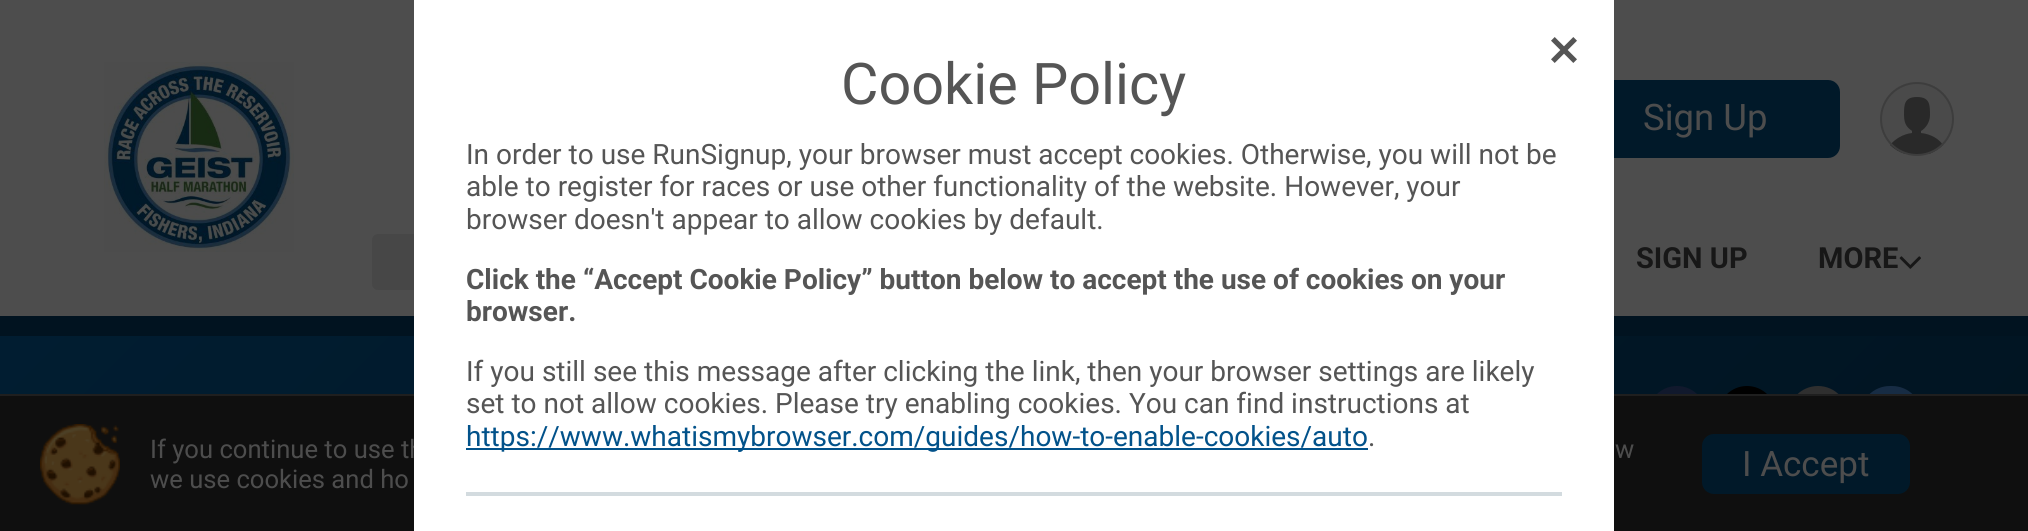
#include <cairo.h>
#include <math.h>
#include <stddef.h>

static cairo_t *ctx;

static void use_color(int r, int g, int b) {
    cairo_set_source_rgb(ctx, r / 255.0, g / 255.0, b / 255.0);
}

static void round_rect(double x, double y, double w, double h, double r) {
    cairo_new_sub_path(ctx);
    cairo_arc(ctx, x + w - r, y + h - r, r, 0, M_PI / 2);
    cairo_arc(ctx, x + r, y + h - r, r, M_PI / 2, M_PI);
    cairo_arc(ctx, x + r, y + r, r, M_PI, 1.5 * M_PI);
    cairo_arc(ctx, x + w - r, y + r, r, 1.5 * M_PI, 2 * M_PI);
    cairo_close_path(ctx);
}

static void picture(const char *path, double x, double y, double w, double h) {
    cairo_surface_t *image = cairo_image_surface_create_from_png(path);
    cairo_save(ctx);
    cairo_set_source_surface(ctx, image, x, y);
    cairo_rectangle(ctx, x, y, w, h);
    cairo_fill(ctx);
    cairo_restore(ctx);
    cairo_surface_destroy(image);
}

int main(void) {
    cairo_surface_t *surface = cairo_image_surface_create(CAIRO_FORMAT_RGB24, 2028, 531);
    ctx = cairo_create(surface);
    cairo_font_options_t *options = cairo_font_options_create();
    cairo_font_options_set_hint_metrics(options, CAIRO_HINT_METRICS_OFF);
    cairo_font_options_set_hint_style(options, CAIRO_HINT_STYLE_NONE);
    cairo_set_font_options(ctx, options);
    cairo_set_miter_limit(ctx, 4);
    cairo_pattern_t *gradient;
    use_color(77, 77, 77);
    cairo_paint(ctx);
    use_color(1, 25, 41);
    round_rect(1570, 80, 270, 78, 12);
    cairo_fill(ctx);
    use_color(71, 71, 71);
    round_rect(372, 234, 222, 56, 6);
    cairo_fill(ctx);
    gradient = cairo_pattern_create_linear(1583, 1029, 445, -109);
    cairo_pattern_add_color_stop_rgba(gradient, 0, 0.004, 0.078, 0.129, 1);
    cairo_pattern_add_color_stop_rgba(gradient, 1, 0.004, 0.114, 0.192, 1);
    cairo_set_source(ctx, gradient);
    cairo_pattern_destroy(gradient);
    cairo_rectangle(ctx, 0, 336, 2028, 58);
    cairo_fill(ctx);
    use_color(1, 19, 32);
    cairo_rectangle(ctx, 0, 316, 2028, 20);
    cairo_fill(ctx);
    use_color(17, 25, 45);
    round_rect(1648, 386, 58, 60, 29);
    cairo_fill(ctx);
    use_color(0, 0, 0);
    round_rect(1718, 386, 58, 60, 29);
    cairo_fill(ctx);
    use_color(47, 47, 47);
    cairo_arc(ctx, 1818, 416, 30, 0, 2 * M_PI);
    cairo_fill(ctx);
    use_color(23, 44, 68);
    round_rect(1860, 386, 62, 60, 30);
    cairo_fill(ctx);
    use_color(15, 15, 15);
    cairo_rectangle(ctx, 0, 396, 2028, 135);
    cairo_fill(ctx);
    use_color(31, 31, 31);
    cairo_rectangle(ctx, 0, 394, 2028, 2);
    cairo_fill(ctx);
    cairo_select_font_face(ctx, "Roboto", CAIRO_FONT_SLANT_NORMAL, CAIRO_FONT_WEIGHT_NORMAL);
    cairo_set_font_size(ctx, 25.6);
    use_color(77, 77, 77);
    cairo_move_to(ctx, 150, 458);
    cairo_show_text(ctx, "If you continue to use th");
    cairo_rectangle(ctx, 415, 1, 1198, 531);
    use_color(255, 255, 255);
    cairo_stroke(ctx);
    cairo_rectangle(ctx, 416, 2, 1196, 529);
    cairo_fill(ctx);
    picture("img1.png", 1551, 37, 26, 26);
    cairo_set_font_size(ctx, 57.5);
    use_color(85, 85, 85);
    cairo_move_to(ctx, 841, 104);
    cairo_show_text(ctx, "Cookie Policy");
    cairo_set_font_size(ctx, 28);
    cairo_move_to(ctx, 466, 164);
    cairo_show_text(ctx, "In order to use RunSignup, your browser must accept cookies. Otherwise, you will not be");
    cairo_move_to(ctx, 466, 196);
    cairo_show_text(ctx, "able to register for races or use other functionality of the website. However, your");
    cairo_move_to(ctx, 466, 229);
    cairo_show_text(ctx, "browser doesn't appear to allow cookies by default.");
    cairo_select_font_face(ctx, "Roboto", CAIRO_FONT_SLANT_NORMAL, CAIRO_FONT_WEIGHT_BOLD);
    cairo_move_to(ctx, 466, 289);
    cairo_show_text(ctx, "Click the “Accept Cookie Policy” button below to accept the use of cookies on your");
    cairo_move_to(ctx, 466, 321);
    cairo_show_text(ctx, "browser.");
    cairo_select_font_face(ctx, "Roboto", CAIRO_FONT_SLANT_NORMAL, CAIRO_FONT_WEIGHT_NORMAL);
    cairo_move_to(ctx, 466, 381);
    cairo_show_text(ctx, "If you still see this message after clicking the link, then your browser settings are likely");
    cairo_move_to(ctx, 466, 413);
    cairo_show_text(ctx, "set to not allow cookies. Please try enabling cookies. You can find instructions at");
    use_color(2, 82, 138);
    cairo_rectangle(ctx, 466, 448, 902, 2);
    cairo_fill(ctx);
    cairo_move_to(ctx, 466, 446);
    cairo_show_text(ctx, "https://www.whatismybrowser.com/guides/how-to-enable-cookies/auto");
    use_color(85, 85, 85);
    cairo_move_to(ctx, 1368, 446);
    cairo_show_text(ctx, ".");
    use_color(211, 219, 223);
    cairo_rectangle(ctx, 466, 492, 1096, 4);
    cairo_fill(ctx);
    picture("img2.png", 104, 62, 190, 190);
    cairo_set_font_size(ctx, 36.5);
    use_color(77, 77, 77);
    cairo_move_to(ctx, 1643, 130);
    cairo_show_text(ctx, "Sign Up");
    cairo_save(ctx);
    round_rect(1880, 82, 74, 74, 37);
    cairo_clip(ctx);
    use_color(74, 74, 74);
    cairo_rectangle(ctx, 1882, 84, 70, 70);
    cairo_fill(ctx);
    cairo_restore(ctx);
    use_color(41, 41, 41);
    cairo_new_path(ctx);
    cairo_move_to(ctx, 1921, 133);
    cairo_curve_to(ctx, 1931, 134, 1939, 139, 1943, 145);
    cairo_curve_to(ctx, 1939, 149, 1934, 152, 1929, 154);
    cairo_line_to(ctx, 1905, 154);
    cairo_curve_to(ctx, 1899, 152, 1894, 149, 1890, 145);
    cairo_curve_to(ctx, 1895, 139, 1903, 134, 1912, 133);
    cairo_line_to(ctx, 1912, 131);
    cairo_curve_to(ctx, 1908, 128, 1904, 125, 1904, 115);
    cairo_curve_to(ctx, 1904, 105, 1904, 97, 1917, 97);
    cairo_curve_to(ctx, 1930, 97, 1930, 105, 1930, 115);
    cairo_curve_to(ctx, 1930, 122, 1926, 128, 1921, 131);
    cairo_close_path(ctx);
    cairo_fill(ctx);
    cairo_arc(ctx, 1917, 119, 36, 0, 2 * M_PI);
    use_color(61, 61, 61);
    cairo_stroke(ctx);
    cairo_select_font_face(ctx, "Roboto", CAIRO_FONT_SLANT_NORMAL, CAIRO_FONT_WEIGHT_BOLD);
    cairo_set_font_size(ctx, 29);
    use_color(23, 23, 23);
    cairo_move_to(ctx, 1636, 268);
    cairo_show_text(ctx, "SIGN UP");
    cairo_move_to(ctx, 1818, 268);
    cairo_show_text(ctx, "MORE");
    picture("img3.png", 1899, 256, 22, 13);
    picture("img4.png", 40, 424, 80, 81);
    cairo_select_font_face(ctx, "Roboto", CAIRO_FONT_SLANT_NORMAL, CAIRO_FONT_WEIGHT_NORMAL);
    cairo_set_font_size(ctx, 25.6);
    use_color(77, 77, 77);
    cairo_move_to(ctx, 1615, 458);
    cairo_show_text(ctx, "w");
    cairo_move_to(ctx, 150, 488);
    cairo_show_text(ctx, "we use cookies and ho");
    use_color(1, 25, 41);
    round_rect(1702, 434, 208, 60, 12);
    cairo_fill(ctx);
    cairo_set_font_size(ctx, 35);
    use_color(77, 77, 77);
    cairo_move_to(ctx, 1742, 476);
    cairo_show_text(ctx, "I Accept");
    cairo_surface_write_to_png(surface, "result.png");
    cairo_font_options_destroy(options);
    cairo_destroy(ctx);
    cairo_surface_destroy(surface);
    return 0;
}
